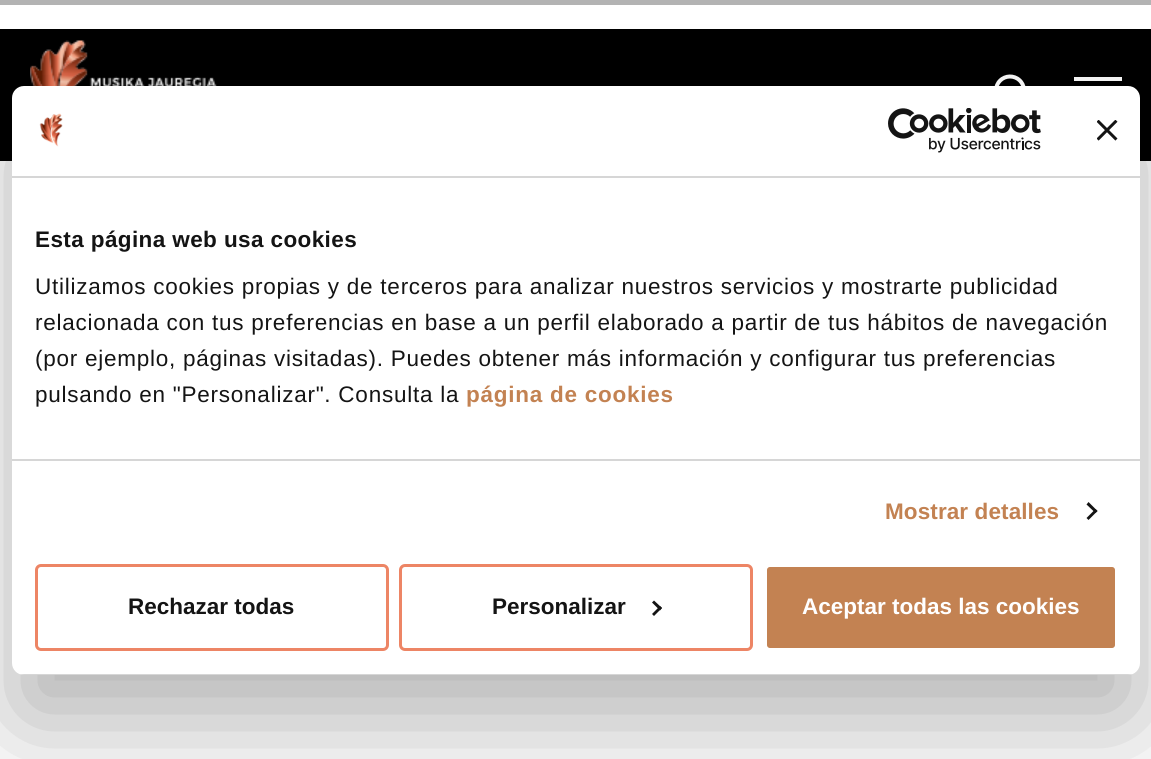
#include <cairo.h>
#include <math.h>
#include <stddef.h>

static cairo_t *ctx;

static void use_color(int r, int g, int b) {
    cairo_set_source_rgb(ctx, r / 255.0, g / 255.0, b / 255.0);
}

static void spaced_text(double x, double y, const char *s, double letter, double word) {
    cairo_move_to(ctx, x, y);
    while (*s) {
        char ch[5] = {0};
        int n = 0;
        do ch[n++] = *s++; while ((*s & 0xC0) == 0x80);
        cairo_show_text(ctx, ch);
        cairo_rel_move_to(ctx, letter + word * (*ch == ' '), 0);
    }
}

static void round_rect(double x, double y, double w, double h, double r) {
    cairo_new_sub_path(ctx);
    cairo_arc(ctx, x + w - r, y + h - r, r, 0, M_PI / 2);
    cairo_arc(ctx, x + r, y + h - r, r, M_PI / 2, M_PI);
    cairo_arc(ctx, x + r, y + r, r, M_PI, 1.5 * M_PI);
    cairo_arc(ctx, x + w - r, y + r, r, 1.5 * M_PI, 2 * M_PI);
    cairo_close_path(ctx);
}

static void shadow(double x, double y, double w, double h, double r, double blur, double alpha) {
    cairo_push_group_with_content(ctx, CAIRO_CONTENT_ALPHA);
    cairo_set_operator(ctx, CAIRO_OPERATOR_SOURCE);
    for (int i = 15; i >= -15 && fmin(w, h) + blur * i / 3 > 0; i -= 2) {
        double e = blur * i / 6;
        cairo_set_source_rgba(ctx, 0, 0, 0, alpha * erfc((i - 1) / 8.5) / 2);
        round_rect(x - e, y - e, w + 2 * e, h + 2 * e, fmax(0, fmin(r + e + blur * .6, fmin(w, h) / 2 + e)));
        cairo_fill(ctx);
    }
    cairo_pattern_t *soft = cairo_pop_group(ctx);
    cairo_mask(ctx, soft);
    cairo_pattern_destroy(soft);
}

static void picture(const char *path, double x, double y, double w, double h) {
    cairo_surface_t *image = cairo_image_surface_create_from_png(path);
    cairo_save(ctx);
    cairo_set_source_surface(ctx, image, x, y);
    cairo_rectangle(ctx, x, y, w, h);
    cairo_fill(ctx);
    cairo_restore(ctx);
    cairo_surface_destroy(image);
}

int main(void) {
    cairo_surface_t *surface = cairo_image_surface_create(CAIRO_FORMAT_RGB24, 1151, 759);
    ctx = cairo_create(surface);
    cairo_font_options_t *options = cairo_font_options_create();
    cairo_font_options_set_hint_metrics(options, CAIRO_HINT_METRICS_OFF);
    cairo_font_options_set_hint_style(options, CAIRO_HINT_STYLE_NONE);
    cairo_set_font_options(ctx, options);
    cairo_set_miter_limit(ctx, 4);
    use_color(255, 255, 255);
    cairo_paint(ctx);
    use_color(179, 179, 179);
    cairo_rectangle(ctx, 0, 0, 1151, 5);
    cairo_fill(ctx);
    use_color(0, 0, 0);
    cairo_rectangle(ctx, 0, 29, 1151, 132);
    cairo_fill(ctx);
    picture("img1.png", 30, 40, 187, 46);
    picture("img2.png", 994, 74, 32, 12);
    use_color(255, 255, 255);
    cairo_rectangle(ctx, 1074, 77, 48, 4);
    cairo_fill(ctx);
    use_color(0, 0, 0);
    shadow(12, 134, 1128, 589, 12, 51, 0.3);
    use_color(255, 255, 255);
    round_rect(12, 86, 1128, 589, 12);
    cairo_fill(ctx);
    use_color(214, 214, 214);
    cairo_rectangle(ctx, 12, 176, 1128, 2);
    cairo_fill(ctx);
    picture("img3.png", 39, 113, 24, 34);
    picture("img4.png", 888, 108, 153, 45);
    picture("img5.png", 1097, 120, 21, 21);
    cairo_rectangle(ctx, 12, 459, 1128, 2);
    cairo_fill(ctx);
    cairo_select_font_face(ctx, "Liberation Sans", CAIRO_FONT_SLANT_NORMAL, CAIRO_FONT_WEIGHT_BOLD);
    cairo_set_font_size(ctx, 22.5);
    use_color(20, 20, 20);
    spaced_text(35, 247, "Esta página web usa cookies", 0.4, 0);
    cairo_select_font_face(ctx, "Liberation Sans", CAIRO_FONT_SLANT_NORMAL, CAIRO_FONT_WEIGHT_NORMAL);
    spaced_text(35, 294, "Utilizamos cookies propias y de terceros para analizar nuestros servicios y mostrarte publicidad", 0.75, 0);
    spaced_text(35, 330, "relacionada con tus preferencias en base a un perfil elaborado a partir de tus hábitos de navegación", 0.75, 0);
    spaced_text(35, 366, "(por ejemplo, páginas visitadas). Puedes obtener más información y configurar tus preferencias", 0.75, 0);
    spaced_text(35, 402, "pulsando en \"Personalizar\". Consulta la", 0.75, 0);
    cairo_select_font_face(ctx, "Liberation Sans", CAIRO_FONT_SLANT_NORMAL, CAIRO_FONT_WEIGHT_BOLD);
    use_color(195, 130, 82);
    spaced_text(466, 402, "página de cookies", 0.75, 0);
    spaced_text(885, 519, "Mostrar detalles", 0.1, 0);
    use_color(20, 20, 20);
    cairo_new_path(ctx);
    cairo_move_to(ctx, 1088.5, 502);
    cairo_line_to(ctx, 1097.5, 511);
    cairo_line_to(ctx, 1095.5, 513);
    cairo_line_to(ctx, 1086.5, 504.5);
    cairo_close_path(ctx);
    cairo_fill(ctx);
    cairo_new_path(ctx);
    cairo_move_to(ctx, 1095.5, 509);
    cairo_line_to(ctx, 1097.5, 511);
    cairo_line_to(ctx, 1088.5, 520);
    cairo_line_to(ctx, 1086.5, 518);
    cairo_close_path(ctx);
    cairo_fill(ctx);
    cairo_save(ctx);
    round_rect(12, 86, 1128, 589, 12);
    cairo_clip(ctx);
    use_color(214, 214, 214);
    cairo_rectangle(ctx, 12, 674, 1128, 1);
    cairo_fill(ctx);
    cairo_restore(ctx);
    round_rect(36.5, 565.5, 351, 84, 4.5);
    use_color(237, 133, 101);
    cairo_set_line_width(ctx, 3);
    cairo_stroke(ctx);
    use_color(20, 20, 20);
    cairo_move_to(ctx, 128, 614);
    cairo_show_text(ctx, "Rechazar todas");
    round_rect(400.5, 565.5, 351, 84, 4.5);
    use_color(237, 133, 101);
    cairo_stroke(ctx);
    use_color(20, 20, 20);
    cairo_move_to(ctx, 492, 614);
    cairo_show_text(ctx, "Personalizar");
    cairo_new_path(ctx);
    cairo_move_to(ctx, 654, 600.5);
    cairo_line_to(ctx, 662, 608);
    cairo_line_to(ctx, 660, 610.5);
    cairo_line_to(ctx, 652, 602.5);
    cairo_close_path(ctx);
    cairo_fill(ctx);
    cairo_new_path(ctx);
    cairo_move_to(ctx, 660, 606);
    cairo_line_to(ctx, 662, 608);
    cairo_line_to(ctx, 654, 616);
    cairo_line_to(ctx, 652, 614);
    cairo_close_path(ctx);
    cairo_fill(ctx);
    use_color(195, 130, 82);
    round_rect(765.5, 565.5, 351, 84, 4.5);
    cairo_fill_preserve(ctx);
    use_color(255, 255, 255);
    cairo_stroke(ctx);
    cairo_move_to(ctx, 802, 614);
    cairo_show_text(ctx, "Aceptar todas las cookies");
    cairo_surface_write_to_png(surface, "result.png");
    cairo_font_options_destroy(options);
    cairo_destroy(ctx);
    cairo_surface_destroy(surface);
    return 0;
}
